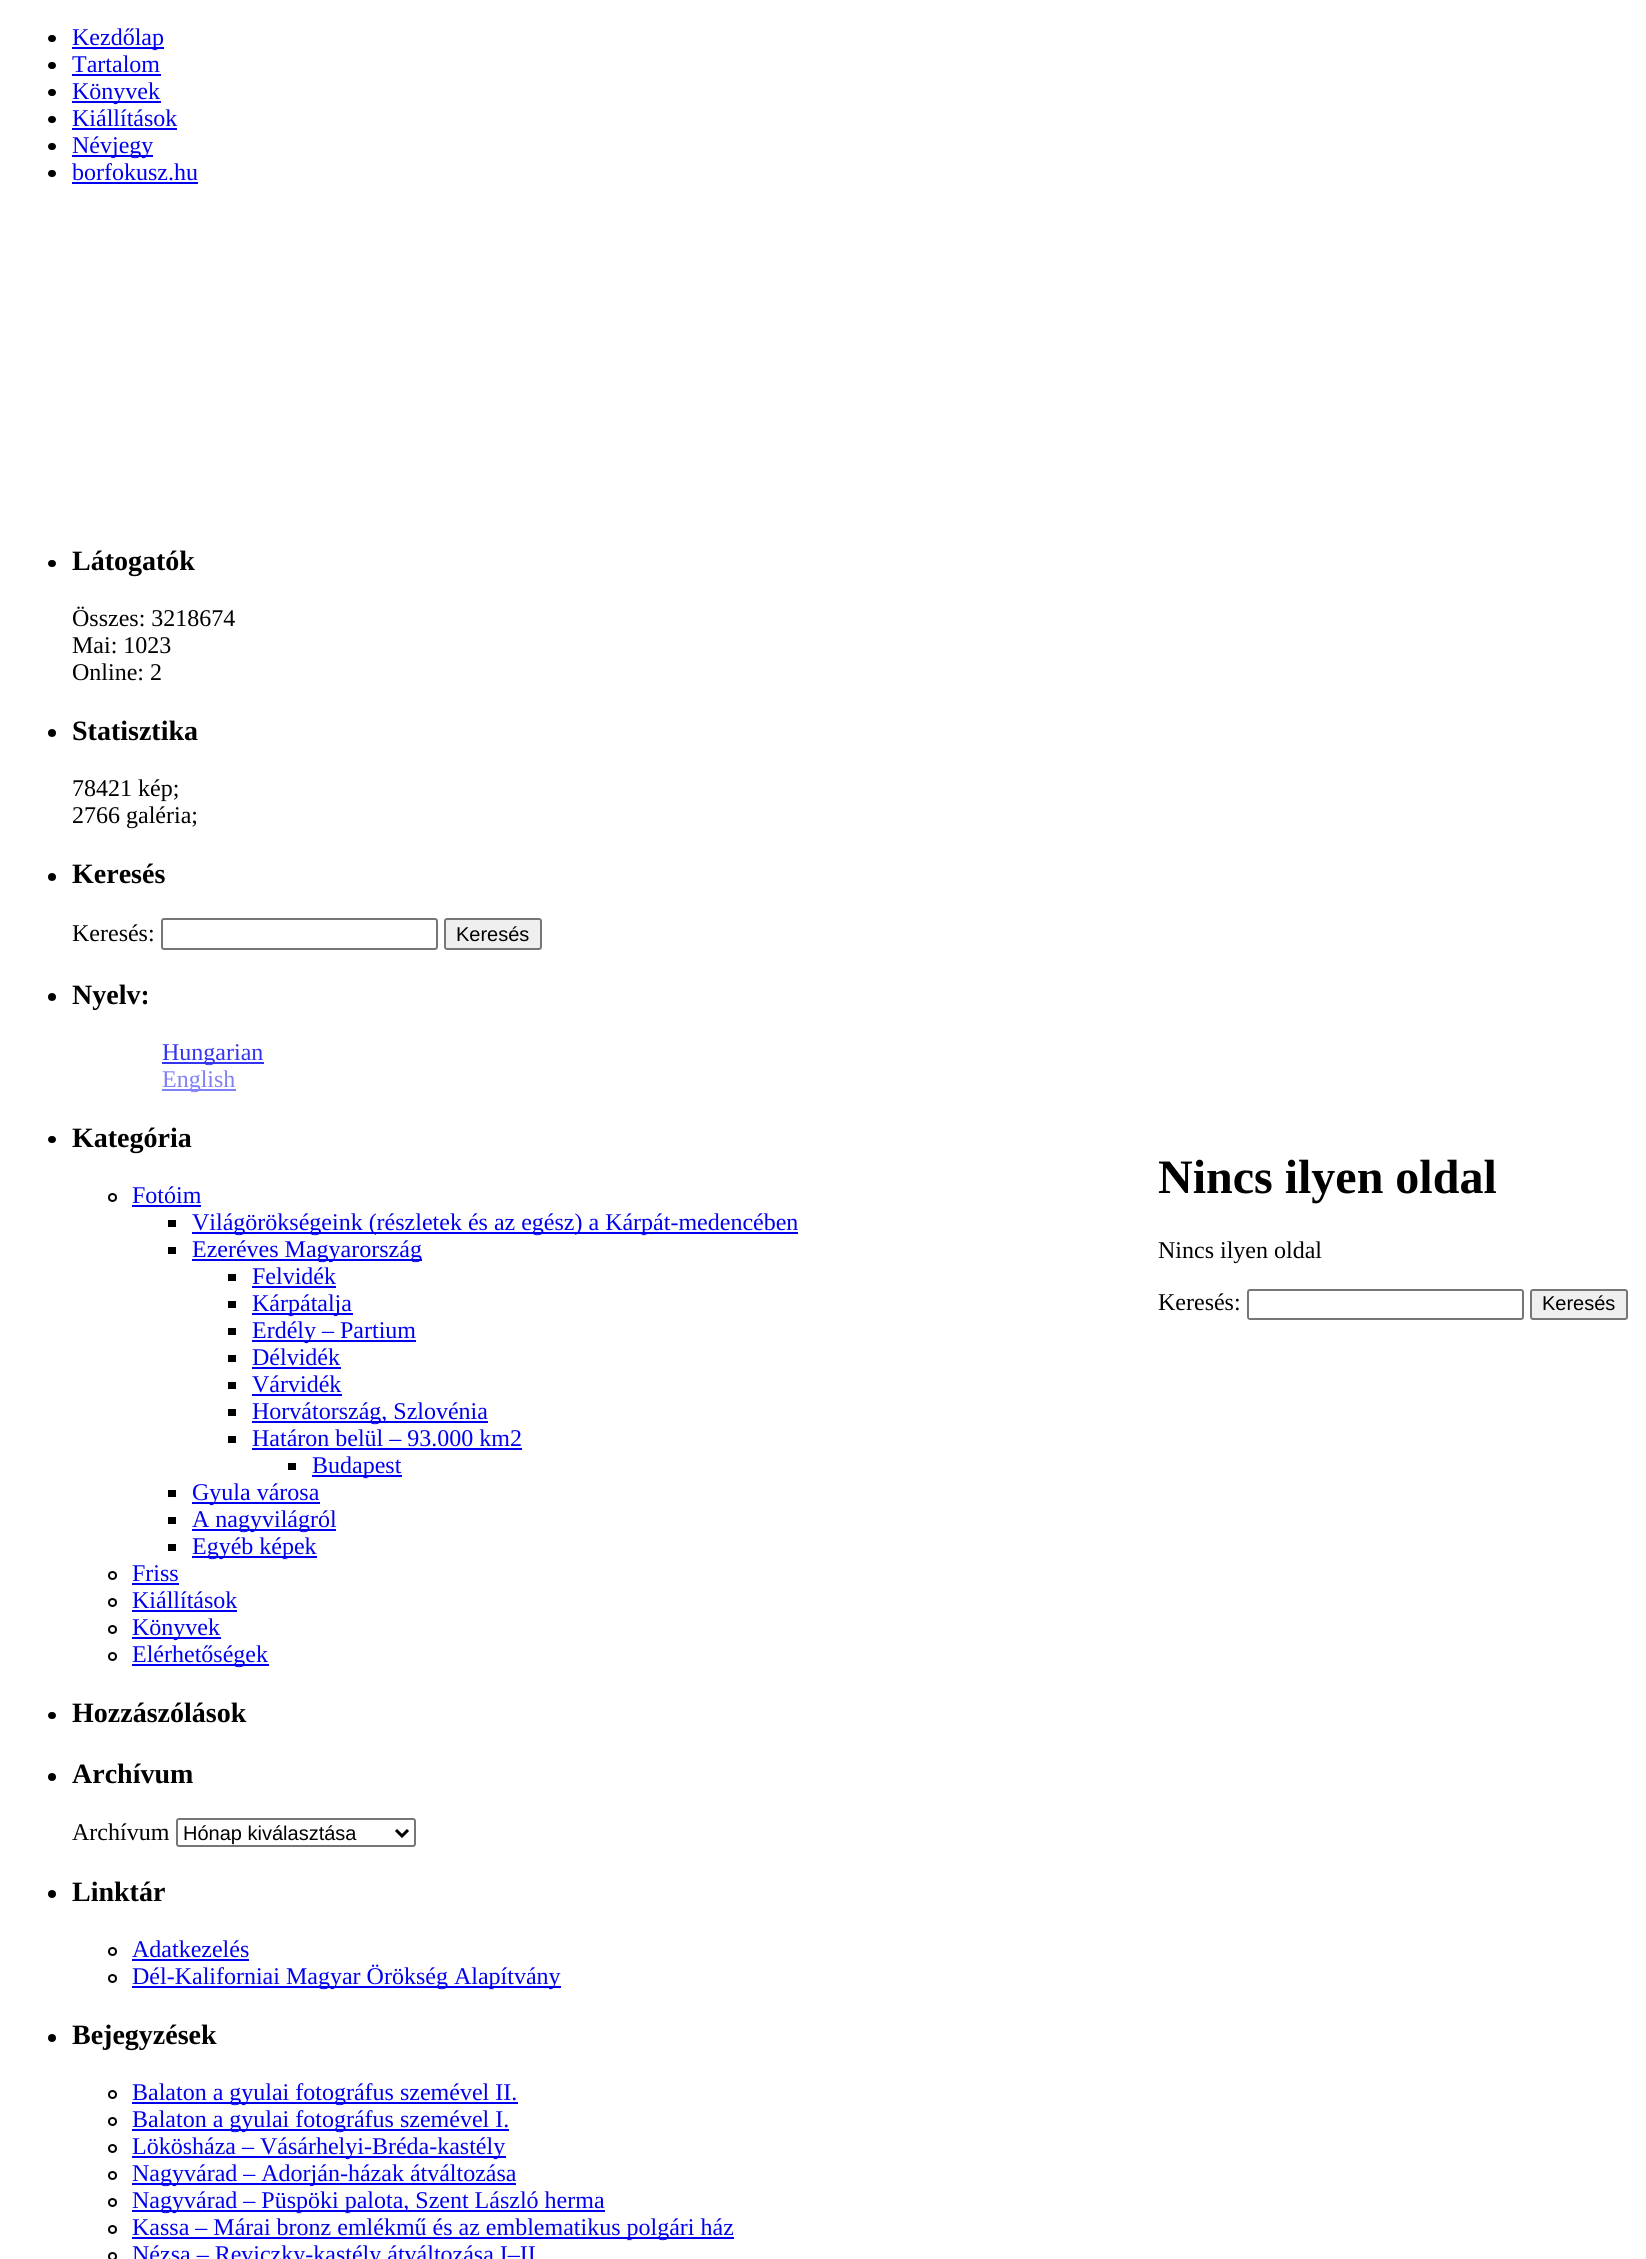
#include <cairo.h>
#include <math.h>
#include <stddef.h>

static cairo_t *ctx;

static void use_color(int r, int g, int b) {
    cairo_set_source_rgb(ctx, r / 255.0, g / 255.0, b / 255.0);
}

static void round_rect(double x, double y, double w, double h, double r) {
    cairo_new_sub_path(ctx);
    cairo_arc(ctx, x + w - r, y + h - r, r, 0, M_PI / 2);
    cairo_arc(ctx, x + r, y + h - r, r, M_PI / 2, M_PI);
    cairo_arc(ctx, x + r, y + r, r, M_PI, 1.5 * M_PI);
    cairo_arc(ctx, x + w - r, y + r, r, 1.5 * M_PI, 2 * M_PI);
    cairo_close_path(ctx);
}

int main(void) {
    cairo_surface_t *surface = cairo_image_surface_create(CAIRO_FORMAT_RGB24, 1646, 2259);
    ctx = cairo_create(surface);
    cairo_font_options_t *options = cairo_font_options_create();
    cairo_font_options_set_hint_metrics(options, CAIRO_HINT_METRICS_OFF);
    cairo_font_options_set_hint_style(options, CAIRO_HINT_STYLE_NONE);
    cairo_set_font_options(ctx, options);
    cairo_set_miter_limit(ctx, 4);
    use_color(255, 255, 255);
    cairo_paint(ctx);
    use_color(0, 0, 0);
    round_rect(48, 35, 8, 7, 3.5);
    cairo_fill(ctx);
    use_color(0, 0, 238);
    cairo_rectangle(ctx, 72, 47, 92, 2);
    cairo_fill(ctx);
    cairo_select_font_face(ctx, "Liberation Serif", CAIRO_FONT_SLANT_NORMAL, CAIRO_FONT_WEIGHT_NORMAL);
    cairo_set_font_size(ctx, 24);
    cairo_move_to(ctx, 72, 45);
    cairo_show_text(ctx, "Kezdőlap");
    use_color(0, 0, 0);
    round_rect(48, 62, 8, 7, 3.5);
    cairo_fill(ctx);
    use_color(0, 0, 238);
    cairo_move_to(ctx, 72, 72);
    cairo_show_text(ctx, "Tartalom");
    cairo_rectangle(ctx, 72, 74, 89, 2);
    cairo_fill(ctx);
    use_color(0, 0, 0);
    round_rect(48, 89, 8, 7, 3.5);
    cairo_fill(ctx);
    use_color(0, 0, 238);
    cairo_rectangle(ctx, 72, 101, 89, 2);
    cairo_fill(ctx);
    cairo_move_to(ctx, 72, 99);
    cairo_show_text(ctx, "Könyvek");
    use_color(0, 0, 0);
    round_rect(48, 116, 8, 7, 3.5);
    cairo_fill(ctx);
    use_color(0, 0, 238);
    cairo_move_to(ctx, 72, 126);
    cairo_show_text(ctx, "Kiállítások");
    cairo_rectangle(ctx, 72, 128, 105, 2);
    cairo_fill(ctx);
    use_color(0, 0, 0);
    round_rect(48, 143, 8, 7, 3.5);
    cairo_fill(ctx);
    use_color(0, 0, 238);
    cairo_rectangle(ctx, 72, 155, 81, 2);
    cairo_fill(ctx);
    cairo_move_to(ctx, 72, 153);
    cairo_show_text(ctx, "Névjegy");
    use_color(0, 0, 0);
    round_rect(48, 170, 8, 7, 3.5);
    cairo_fill(ctx);
    use_color(0, 0, 238);
    cairo_move_to(ctx, 72, 180);
    cairo_show_text(ctx, "borfokusz.hu");
    cairo_rectangle(ctx, 72, 182, 126, 2);
    cairo_fill(ctx);
    use_color(0, 0, 0);
    round_rect(48, 560, 8, 7, 3.5);
    cairo_fill(ctx);
    cairo_select_font_face(ctx, "Liberation Serif", CAIRO_FONT_SLANT_NORMAL, CAIRO_FONT_WEIGHT_BOLD);
    cairo_set_font_size(ctx, 28);
    cairo_move_to(ctx, 72, 570);
    cairo_show_text(ctx, "Látogatók");
    cairo_select_font_face(ctx, "Liberation Serif", CAIRO_FONT_SLANT_NORMAL, CAIRO_FONT_WEIGHT_NORMAL);
    cairo_set_font_size(ctx, 24);
    cairo_move_to(ctx, 72, 626);
    cairo_show_text(ctx, "Összes: 3218674");
    cairo_move_to(ctx, 72, 653);
    cairo_show_text(ctx, "Mai: 1023");
    cairo_move_to(ctx, 72, 680);
    cairo_show_text(ctx, "Online: 2");
    cairo_new_path(ctx);
    cairo_arc(ctx, 52, 733, 4, 0, 2 * M_PI);
    cairo_fill(ctx);
    cairo_select_font_face(ctx, "Liberation Serif", CAIRO_FONT_SLANT_NORMAL, CAIRO_FONT_WEIGHT_BOLD);
    cairo_set_font_size(ctx, 28);
    cairo_move_to(ctx, 72, 740);
    cairo_show_text(ctx, "Statisztika");
    cairo_select_font_face(ctx, "Liberation Serif", CAIRO_FONT_SLANT_NORMAL, CAIRO_FONT_WEIGHT_NORMAL);
    cairo_set_font_size(ctx, 24);
    cairo_move_to(ctx, 72, 796);
    cairo_show_text(ctx, "78421 kép;");
    cairo_move_to(ctx, 72, 823);
    cairo_show_text(ctx, "2766 galéria;");
    cairo_new_path(ctx);
    cairo_arc(ctx, 52, 877, 4, 0, 2 * M_PI);
    cairo_fill(ctx);
    cairo_select_font_face(ctx, "Liberation Serif", CAIRO_FONT_SLANT_NORMAL, CAIRO_FONT_WEIGHT_BOLD);
    cairo_set_font_size(ctx, 28);
    cairo_move_to(ctx, 72, 883);
    cairo_show_text(ctx, "Keresés");
    cairo_select_font_face(ctx, "Liberation Serif", CAIRO_FONT_SLANT_NORMAL, CAIRO_FONT_WEIGHT_NORMAL);
    cairo_set_font_size(ctx, 24);
    cairo_move_to(ctx, 72, 941);
    cairo_show_text(ctx, "Keresés:");
    round_rect(162, 919, 275, 30, 2);
    use_color(118, 118, 118);
    cairo_stroke(ctx);
    use_color(239, 239, 239);
    round_rect(445, 919, 96, 30, 2);
    cairo_fill_preserve(ctx);
    use_color(118, 118, 118);
    cairo_stroke(ctx);
    cairo_select_font_face(ctx, "Liberation Sans", CAIRO_FONT_SLANT_NORMAL, CAIRO_FONT_WEIGHT_NORMAL);
    cairo_set_font_size(ctx, 20);
    use_color(0, 0, 0);
    cairo_move_to(ctx, 456, 941);
    cairo_show_text(ctx, "Keresés");
    cairo_new_path(ctx);
    cairo_arc(ctx, 52, 997, 4, 0, 2 * M_PI);
    cairo_fill(ctx);
    cairo_select_font_face(ctx, "Liberation Serif", CAIRO_FONT_SLANT_NORMAL, CAIRO_FONT_WEIGHT_BOLD);
    cairo_set_font_size(ctx, 28);
    cairo_move_to(ctx, 72, 1004);
    cairo_show_text(ctx, "Nyelv:");
    use_color(51, 51, 241);
    cairo_rectangle(ctx, 162, 1062, 102, 2);
    cairo_fill(ctx);
    cairo_select_font_face(ctx, "Liberation Serif", CAIRO_FONT_SLANT_NORMAL, CAIRO_FONT_WEIGHT_NORMAL);
    cairo_set_font_size(ctx, 24);
    cairo_move_to(ctx, 162, 1060);
    cairo_show_text(ctx, "Hungarian");
    use_color(128, 128, 247);
    cairo_rectangle(ctx, 162, 1089, 74, 2);
    cairo_fill(ctx);
    cairo_move_to(ctx, 162, 1087);
    cairo_show_text(ctx, "English");
    use_color(0, 0, 0);
    round_rect(48, 1136, 8, 7, 3.5);
    cairo_fill(ctx);
    cairo_select_font_face(ctx, "Liberation Serif", CAIRO_FONT_SLANT_NORMAL, CAIRO_FONT_WEIGHT_BOLD);
    cairo_set_font_size(ctx, 28);
    cairo_move_to(ctx, 72, 1147);
    cairo_show_text(ctx, "Kategória");
    cairo_new_path(ctx);
    cairo_arc(ctx, 112.5, 1197.5, 3.5, 0, 2 * M_PI);
    cairo_stroke(ctx);
    cairo_select_font_face(ctx, "Liberation Serif", CAIRO_FONT_SLANT_NORMAL, CAIRO_FONT_WEIGHT_NORMAL);
    cairo_set_font_size(ctx, 24);
    use_color(0, 0, 238);
    cairo_move_to(ctx, 132, 1203);
    cairo_show_text(ctx, "Fotóim");
    cairo_rectangle(ctx, 132, 1205, 69, 2);
    cairo_fill(ctx);
    use_color(0, 0, 0);
    cairo_rectangle(ctx, 168, 1220, 8, 7);
    cairo_fill(ctx);
    use_color(0, 0, 238);
    cairo_rectangle(ctx, 192, 1232, 606, 2);
    cairo_fill(ctx);
    cairo_move_to(ctx, 192, 1230);
    cairo_show_text(ctx, "Világörökségeink (részletek és az egész) a Kárpát-medencében");
    use_color(0, 0, 0);
    cairo_rectangle(ctx, 168, 1247, 8, 7);
    cairo_fill(ctx);
    use_color(0, 0, 238);
    cairo_rectangle(ctx, 192, 1259, 230, 2);
    cairo_fill(ctx);
    cairo_move_to(ctx, 192, 1257);
    cairo_show_text(ctx, "Ezeréves Magyarország");
    use_color(0, 0, 0);
    cairo_rectangle(ctx, 228, 1274, 8, 7);
    cairo_fill(ctx);
    use_color(0, 0, 238);
    cairo_move_to(ctx, 252, 1284);
    cairo_show_text(ctx, "Felvidék");
    cairo_rectangle(ctx, 252, 1286, 84, 2);
    cairo_fill(ctx);
    use_color(0, 0, 0);
    cairo_rectangle(ctx, 228, 1301, 8, 7);
    cairo_fill(ctx);
    use_color(0, 0, 238);
    cairo_rectangle(ctx, 252, 1313, 101, 2);
    cairo_fill(ctx);
    cairo_move_to(ctx, 252, 1311);
    cairo_show_text(ctx, "Kárpátalja");
    use_color(0, 0, 0);
    cairo_rectangle(ctx, 228, 1328, 8, 7);
    cairo_fill(ctx);
    use_color(0, 0, 238);
    cairo_rectangle(ctx, 252, 1340, 164, 2);
    cairo_fill(ctx);
    cairo_move_to(ctx, 252, 1338);
    cairo_show_text(ctx, "Erdély – Partium");
    use_color(0, 0, 0);
    cairo_rectangle(ctx, 228, 1355, 8, 7);
    cairo_fill(ctx);
    use_color(0, 0, 238);
    cairo_move_to(ctx, 252, 1365);
    cairo_show_text(ctx, "Délvidék");
    cairo_rectangle(ctx, 252, 1367, 89, 2);
    cairo_fill(ctx);
    use_color(0, 0, 0);
    cairo_rectangle(ctx, 228, 1382, 8, 7);
    cairo_fill(ctx);
    use_color(0, 0, 238);
    cairo_move_to(ctx, 252, 1392);
    cairo_show_text(ctx, "Várvidék");
    cairo_rectangle(ctx, 252, 1394, 90, 2);
    cairo_fill(ctx);
    use_color(0, 0, 0);
    cairo_rectangle(ctx, 228, 1409, 8, 7);
    cairo_fill(ctx);
    use_color(0, 0, 238);
    cairo_rectangle(ctx, 252, 1421, 236, 2);
    cairo_fill(ctx);
    cairo_move_to(ctx, 252, 1419);
    cairo_show_text(ctx, "Horvátország, Szlovénia");
    use_color(0, 0, 0);
    cairo_rectangle(ctx, 228, 1436, 8, 7);
    cairo_fill(ctx);
    use_color(0, 0, 238);
    cairo_move_to(ctx, 252, 1446);
    cairo_show_text(ctx, "Határon belül – 93.000 km2");
    cairo_rectangle(ctx, 252, 1448, 270, 2);
    cairo_fill(ctx);
    use_color(0, 0, 0);
    cairo_rectangle(ctx, 288, 1463, 8, 7);
    cairo_fill(ctx);
    use_color(0, 0, 238);
    cairo_rectangle(ctx, 312, 1475, 90, 2);
    cairo_fill(ctx);
    cairo_move_to(ctx, 312, 1473);
    cairo_show_text(ctx, "Budapest");
    use_color(0, 0, 0);
    cairo_rectangle(ctx, 168, 1490, 8, 7);
    cairo_fill(ctx);
    use_color(0, 0, 238);
    cairo_rectangle(ctx, 192, 1502, 128, 2);
    cairo_fill(ctx);
    cairo_move_to(ctx, 192, 1500);
    cairo_show_text(ctx, "Gyula városa");
    use_color(0, 0, 0);
    cairo_rectangle(ctx, 168, 1517, 8, 7);
    cairo_fill(ctx);
    use_color(0, 0, 238);
    cairo_rectangle(ctx, 192, 1529, 144, 2);
    cairo_fill(ctx);
    cairo_move_to(ctx, 192, 1527);
    cairo_show_text(ctx, "A nagyvilágról");
    use_color(0, 0, 0);
    cairo_rectangle(ctx, 168, 1544, 8, 7);
    cairo_fill(ctx);
    use_color(0, 0, 238);
    cairo_rectangle(ctx, 192, 1556, 125, 2);
    cairo_fill(ctx);
    cairo_move_to(ctx, 192, 1554);
    cairo_show_text(ctx, "Egyéb képek");
    cairo_new_path(ctx);
    cairo_arc(ctx, 112.5, 1575.5, 3.5, 0, 2 * M_PI);
    use_color(0, 0, 0);
    cairo_stroke(ctx);
    use_color(0, 0, 238);
    cairo_move_to(ctx, 132, 1581);
    cairo_show_text(ctx, "Friss");
    cairo_rectangle(ctx, 132, 1583, 47, 2);
    cairo_fill(ctx);
    cairo_arc(ctx, 112.5, 1602.5, 3.5, 0, 2 * M_PI);
    use_color(0, 0, 0);
    cairo_stroke(ctx);
    use_color(0, 0, 238);
    cairo_move_to(ctx, 132, 1608);
    cairo_show_text(ctx, "Kiállítások");
    cairo_rectangle(ctx, 132, 1610, 105, 2);
    cairo_fill(ctx);
    cairo_arc(ctx, 112.5, 1629.5, 3.5, 0, 2 * M_PI);
    use_color(0, 0, 0);
    cairo_stroke(ctx);
    use_color(0, 0, 238);
    cairo_rectangle(ctx, 132, 1637, 89, 2);
    cairo_fill(ctx);
    cairo_move_to(ctx, 132, 1635);
    cairo_show_text(ctx, "Könyvek");
    cairo_new_path(ctx);
    cairo_arc(ctx, 112.5, 1656.5, 3.5, 0, 2 * M_PI);
    use_color(0, 0, 0);
    cairo_stroke(ctx);
    use_color(0, 0, 238);
    cairo_rectangle(ctx, 132, 1664, 137, 2);
    cairo_fill(ctx);
    cairo_move_to(ctx, 132, 1662);
    cairo_show_text(ctx, "Elérhetőségek");
    use_color(0, 0, 0);
    round_rect(48, 1712, 8, 7, 3.5);
    cairo_fill(ctx);
    cairo_select_font_face(ctx, "Liberation Serif", CAIRO_FONT_SLANT_NORMAL, CAIRO_FONT_WEIGHT_BOLD);
    cairo_set_font_size(ctx, 28);
    cairo_move_to(ctx, 72, 1722);
    cairo_show_text(ctx, "Hozzászólások");
    cairo_new_path(ctx);
    cairo_arc(ctx, 52, 1777, 4, 0, 2 * M_PI);
    cairo_fill(ctx);
    cairo_move_to(ctx, 72, 1783);
    cairo_show_text(ctx, "Archívum");
    cairo_select_font_face(ctx, "Liberation Serif", CAIRO_FONT_SLANT_NORMAL, CAIRO_FONT_WEIGHT_NORMAL);
    cairo_set_font_size(ctx, 24);
    cairo_move_to(ctx, 72, 1840);
    cairo_show_text(ctx, "Archívum");
    round_rect(177, 1819, 238, 27, 2);
    use_color(118, 118, 118);
    cairo_stroke(ctx);
    cairo_new_path(ctx);
    cairo_move_to(ctx, 396, 1830);
    cairo_line_to(ctx, 402, 1836);
    cairo_line_to(ctx, 408, 1830);
    use_color(0, 0, 0);
    cairo_set_line_width(ctx, 3);
    cairo_stroke(ctx);
    cairo_select_font_face(ctx, "Liberation Sans", CAIRO_FONT_SLANT_NORMAL, CAIRO_FONT_WEIGHT_NORMAL);
    cairo_set_font_size(ctx, 20);
    cairo_move_to(ctx, 183, 1840);
    cairo_show_text(ctx, "Hónap kiválasztása");
    cairo_new_path(ctx);
    cairo_arc(ctx, 52, 1894, 4, 0, 2 * M_PI);
    cairo_fill(ctx);
    cairo_select_font_face(ctx, "Liberation Serif", CAIRO_FONT_SLANT_NORMAL, CAIRO_FONT_WEIGHT_BOLD);
    cairo_set_font_size(ctx, 28);
    cairo_move_to(ctx, 72, 1901);
    cairo_show_text(ctx, "Linktár");
    cairo_new_path(ctx);
    cairo_arc(ctx, 112.5, 1951.5, 3.5, 0, 2 * M_PI);
    cairo_set_line_width(ctx, 2);
    cairo_stroke(ctx);
    cairo_select_font_face(ctx, "Liberation Serif", CAIRO_FONT_SLANT_NORMAL, CAIRO_FONT_WEIGHT_NORMAL);
    cairo_set_font_size(ctx, 24);
    use_color(0, 0, 238);
    cairo_move_to(ctx, 132, 1957);
    cairo_show_text(ctx, "Adatkezelés");
    cairo_rectangle(ctx, 132, 1959, 117, 2);
    cairo_fill(ctx);
    cairo_arc(ctx, 112.5, 1978.5, 3.5, 0, 2 * M_PI);
    use_color(0, 0, 0);
    cairo_stroke(ctx);
    use_color(0, 0, 238);
    cairo_rectangle(ctx, 132, 1986, 429, 2);
    cairo_fill(ctx);
    cairo_move_to(ctx, 132, 1984);
    cairo_show_text(ctx, "Dél-Kaliforniai Magyar Örökség Alapítvány");
    use_color(0, 0, 0);
    cairo_new_path(ctx);
    cairo_arc(ctx, 52, 2038, 4, 0, 2 * M_PI);
    cairo_fill(ctx);
    cairo_select_font_face(ctx, "Liberation Serif", CAIRO_FONT_SLANT_NORMAL, CAIRO_FONT_WEIGHT_BOLD);
    cairo_set_font_size(ctx, 28);
    cairo_move_to(ctx, 72, 2044);
    cairo_show_text(ctx, "Bejegyzések");
    cairo_new_path(ctx);
    cairo_arc(ctx, 112.5, 2094.5, 3.5, 0, 2 * M_PI);
    cairo_stroke(ctx);
    use_color(0, 0, 238);
    cairo_rectangle(ctx, 132, 2102, 386, 2);
    cairo_fill(ctx);
    cairo_select_font_face(ctx, "Liberation Serif", CAIRO_FONT_SLANT_NORMAL, CAIRO_FONT_WEIGHT_NORMAL);
    cairo_set_font_size(ctx, 24);
    cairo_move_to(ctx, 132, 2100);
    cairo_show_text(ctx, "Balaton a gyulai fotográfus szemével II.");
    cairo_new_path(ctx);
    cairo_arc(ctx, 112.5, 2121.5, 3.5, 0, 2 * M_PI);
    use_color(0, 0, 0);
    cairo_stroke(ctx);
    use_color(0, 0, 238);
    cairo_rectangle(ctx, 132, 2129, 377, 2);
    cairo_fill(ctx);
    cairo_move_to(ctx, 132, 2127);
    cairo_show_text(ctx, "Balaton a gyulai fotográfus szemével I.");
    cairo_new_path(ctx);
    cairo_arc(ctx, 112.5, 2148.5, 3.5, 0, 2 * M_PI);
    use_color(0, 0, 0);
    cairo_stroke(ctx);
    use_color(0, 0, 238);
    cairo_rectangle(ctx, 132, 2156, 374, 2);
    cairo_fill(ctx);
    cairo_move_to(ctx, 132, 2154);
    cairo_show_text(ctx, "Lökösháza – Vásárhelyi-Bréda-kastély");
    cairo_new_path(ctx);
    cairo_arc(ctx, 112.5, 2175.5, 3.5, 0, 2 * M_PI);
    use_color(0, 0, 0);
    cairo_stroke(ctx);
    use_color(0, 0, 238);
    cairo_rectangle(ctx, 132, 2183, 384, 2);
    cairo_fill(ctx);
    cairo_move_to(ctx, 132, 2181);
    cairo_show_text(ctx, "Nagyvárad – Adorján-házak átváltozása");
    cairo_new_path(ctx);
    cairo_arc(ctx, 112.5, 2202.5, 3.5, 0, 2 * M_PI);
    use_color(0, 0, 0);
    cairo_stroke(ctx);
    use_color(0, 0, 238);
    cairo_rectangle(ctx, 132, 2210, 473, 2);
    cairo_fill(ctx);
    cairo_move_to(ctx, 132, 2208);
    cairo_show_text(ctx, "Nagyvárad – Püspöki palota, Szent László herma");
    cairo_new_path(ctx);
    cairo_arc(ctx, 112.5, 2229.5, 3.5, 0, 2 * M_PI);
    use_color(0, 0, 0);
    cairo_stroke(ctx);
    use_color(0, 0, 238);
    cairo_rectangle(ctx, 132, 2237, 602, 2);
    cairo_fill(ctx);
    cairo_move_to(ctx, 132, 2235);
    cairo_show_text(ctx, "Kassa – Márai bronz emlékmű és az emblematikus polgári ház");
    cairo_new_path(ctx);
    cairo_arc(ctx, 112.5, 2256.5, 3.5, 0, 2 * M_PI);
    use_color(0, 0, 0);
    cairo_stroke(ctx);
    use_color(0, 0, 238);
    cairo_move_to(ctx, 132, 2262);
    cairo_show_text(ctx, "Nézsa – Reviczky-kastély átváltozása I–II");
    cairo_select_font_face(ctx, "Liberation Serif", CAIRO_FONT_SLANT_NORMAL, CAIRO_FONT_WEIGHT_BOLD);
    cairo_set_font_size(ctx, 48);
    use_color(0, 0, 0);
    cairo_move_to(ctx, 1158, 1193);
    cairo_show_text(ctx, "Nincs ilyen oldal");
    cairo_select_font_face(ctx, "Liberation Serif", CAIRO_FONT_SLANT_NORMAL, CAIRO_FONT_WEIGHT_NORMAL);
    cairo_set_font_size(ctx, 24);
    cairo_move_to(ctx, 1158, 1258);
    cairo_show_text(ctx, "Nincs ilyen oldal");
    cairo_move_to(ctx, 1158, 1310);
    cairo_show_text(ctx, "Keresés:");
    round_rect(1248, 1290, 275, 29, 2);
    use_color(118, 118, 118);
    cairo_stroke(ctx);
    use_color(239, 239, 239);
    round_rect(1531, 1290, 96, 29, 2);
    cairo_fill_preserve(ctx);
    use_color(118, 118, 118);
    cairo_stroke(ctx);
    cairo_select_font_face(ctx, "Liberation Sans", CAIRO_FONT_SLANT_NORMAL, CAIRO_FONT_WEIGHT_NORMAL);
    cairo_set_font_size(ctx, 20);
    use_color(0, 0, 0);
    cairo_move_to(ctx, 1542, 1310);
    cairo_show_text(ctx, "Keresés");
    cairo_surface_write_to_png(surface, "result.png");
    cairo_font_options_destroy(options);
    cairo_destroy(ctx);
    cairo_surface_destroy(surface);
    return 0;
}
